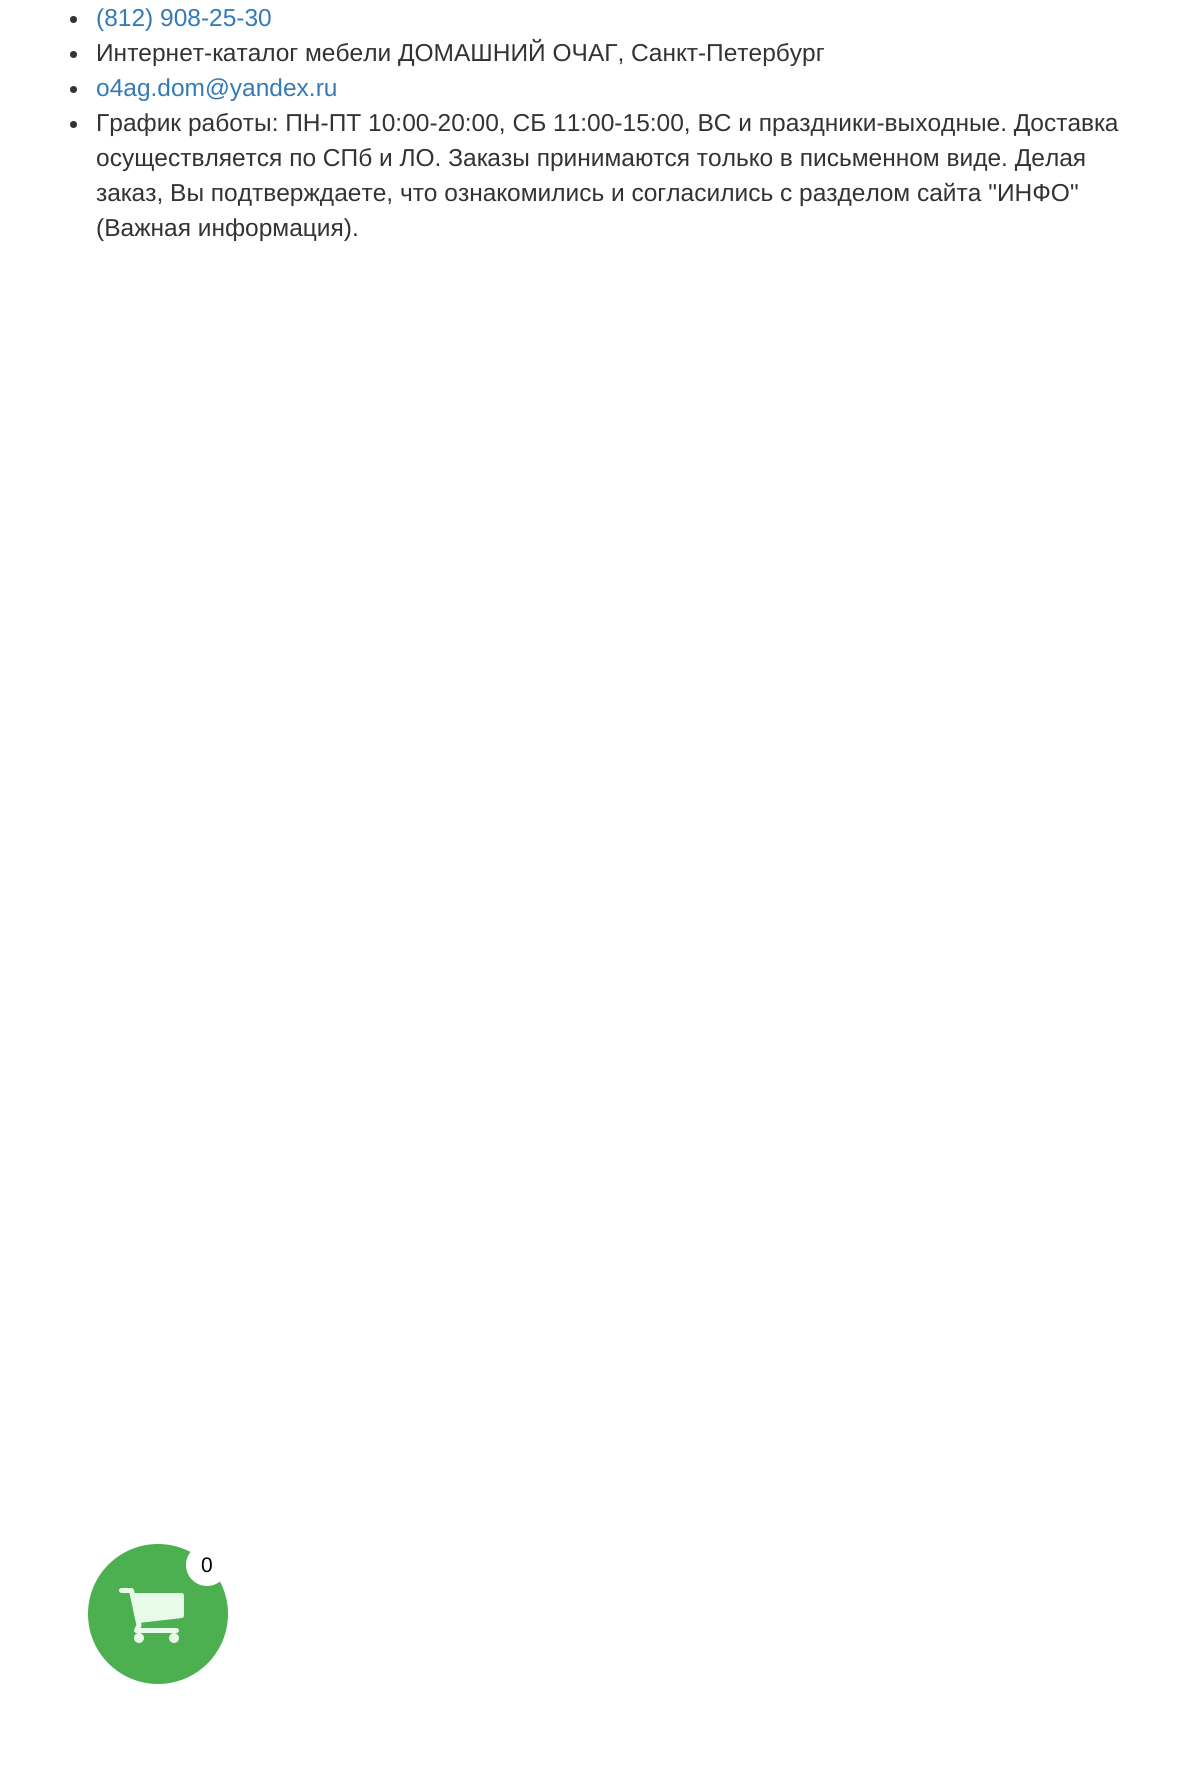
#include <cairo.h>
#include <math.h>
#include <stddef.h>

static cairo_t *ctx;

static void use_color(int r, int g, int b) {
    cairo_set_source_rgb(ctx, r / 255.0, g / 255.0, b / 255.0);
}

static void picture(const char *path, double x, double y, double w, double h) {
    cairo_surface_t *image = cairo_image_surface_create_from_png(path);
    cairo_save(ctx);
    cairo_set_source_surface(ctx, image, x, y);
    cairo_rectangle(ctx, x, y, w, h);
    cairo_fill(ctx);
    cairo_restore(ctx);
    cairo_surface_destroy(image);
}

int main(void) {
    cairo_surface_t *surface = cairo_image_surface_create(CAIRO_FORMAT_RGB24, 1178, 1770);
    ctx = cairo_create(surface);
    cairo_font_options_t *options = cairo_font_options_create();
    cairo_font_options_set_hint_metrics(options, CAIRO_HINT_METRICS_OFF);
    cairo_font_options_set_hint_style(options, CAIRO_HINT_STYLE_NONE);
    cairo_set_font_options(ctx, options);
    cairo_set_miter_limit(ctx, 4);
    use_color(255, 255, 255);
    cairo_paint(ctx);
    use_color(51, 51, 51);
    cairo_arc(ctx, 73.5, 19.5, 3.5, 0, 2 * M_PI);
    cairo_fill(ctx);
    cairo_select_font_face(ctx, "Liberation Sans", CAIRO_FONT_SLANT_NORMAL, CAIRO_FONT_WEIGHT_NORMAL);
    cairo_set_font_size(ctx, 24.5);
    use_color(51, 122, 183);
    cairo_move_to(ctx, 96, 26);
    cairo_show_text(ctx, "(812) 908-25-30");
    use_color(51, 51, 51);
    cairo_new_path(ctx);
    cairo_arc(ctx, 73.5, 54.5, 3.5, 0, 2 * M_PI);
    cairo_fill(ctx);
    cairo_move_to(ctx, 96, 61);
    cairo_show_text(ctx, "Интернет-каталог мебели ДОМАШНИЙ ОЧАГ, Санкт-Петербург");
    cairo_new_path(ctx);
    cairo_arc(ctx, 73.5, 89.5, 3.5, 0, 2 * M_PI);
    cairo_fill(ctx);
    use_color(51, 122, 183);
    cairo_move_to(ctx, 96, 96);
    cairo_show_text(ctx, "o4ag.dom@yandex.ru");
    use_color(51, 51, 51);
    cairo_new_path(ctx);
    cairo_arc(ctx, 73.5, 124.5, 3.5, 0, 2 * M_PI);
    cairo_fill(ctx);
    cairo_move_to(ctx, 96, 131);
    cairo_show_text(ctx, "График работы: ПН-ПТ 10:00-20:00, СБ 11:00-15:00, ВС и праздники-выходные. Доставка");
    cairo_move_to(ctx, 96, 166);
    cairo_show_text(ctx, "осуществляется по СПб и ЛО. Заказы принимаются только в письменном виде. Делая");
    cairo_move_to(ctx, 96, 201);
    cairo_show_text(ctx, "заказ, Вы подтверждаете, что ознакомились и согласились с разделом сайта \"ИНФО\"");
    cairo_move_to(ctx, 96, 236);
    cairo_show_text(ctx, "(Важная информация).");
    use_color(76, 175, 80);
    cairo_new_path(ctx);
    cairo_arc(ctx, 158, 1614, 70, 0, 2 * M_PI);
    cairo_fill(ctx);
    use_color(255, 255, 255);
    cairo_arc(ctx, 207, 1565, 21, 0, 2 * M_PI);
    cairo_fill(ctx);
    cairo_set_font_size(ctx, 21);
    use_color(0, 0, 0);
    cairo_move_to(ctx, 201, 1572);
    cairo_show_text(ctx, "0");
    picture("img1.png", 119, 1588, 65, 55);
    cairo_surface_write_to_png(surface, "result.png");
    cairo_font_options_destroy(options);
    cairo_destroy(ctx);
    cairo_surface_destroy(surface);
    return 0;
}
